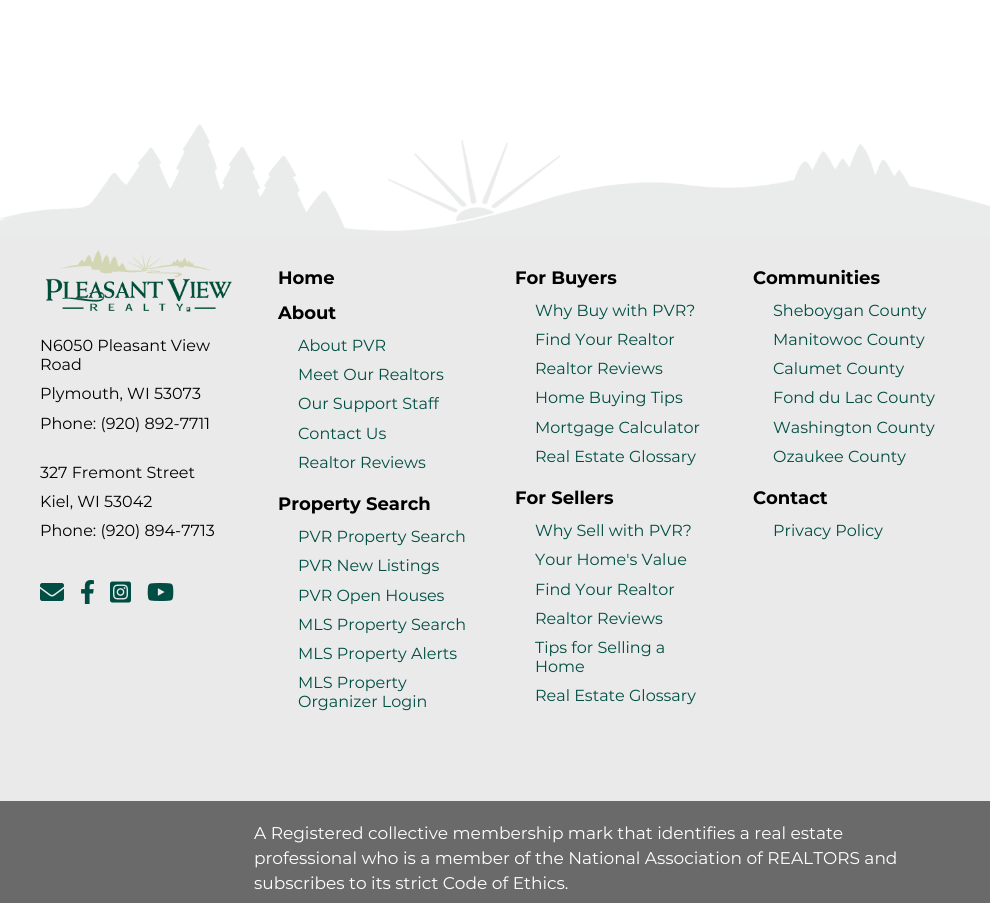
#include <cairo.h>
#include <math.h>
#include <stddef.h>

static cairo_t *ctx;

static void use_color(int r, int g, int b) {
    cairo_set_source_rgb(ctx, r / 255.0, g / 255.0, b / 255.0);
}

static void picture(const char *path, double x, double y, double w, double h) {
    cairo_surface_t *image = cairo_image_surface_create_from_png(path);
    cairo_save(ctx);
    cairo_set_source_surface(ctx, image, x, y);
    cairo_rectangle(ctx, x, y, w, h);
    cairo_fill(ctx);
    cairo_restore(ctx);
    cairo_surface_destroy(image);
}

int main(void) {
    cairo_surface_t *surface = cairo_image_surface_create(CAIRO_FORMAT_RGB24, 990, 903);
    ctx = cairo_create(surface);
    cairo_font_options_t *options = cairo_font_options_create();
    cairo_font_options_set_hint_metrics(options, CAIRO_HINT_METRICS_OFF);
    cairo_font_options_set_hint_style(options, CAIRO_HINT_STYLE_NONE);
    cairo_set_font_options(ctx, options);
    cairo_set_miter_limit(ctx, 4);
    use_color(255, 255, 255);
    cairo_paint(ctx);
    picture("img1.png", 0, 124, 990, 112);
    use_color(234, 234, 234);
    cairo_rectangle(ctx, 0, 236, 990, 565);
    cairo_fill(ctx);
    picture("img2.png", 46, 250, 186, 62);
    cairo_select_font_face(ctx, "Montserrat", CAIRO_FONT_SLANT_NORMAL, CAIRO_FONT_WEIGHT_NORMAL);
    cairo_set_font_size(ctx, 16);
    use_color(0, 0, 0);
    cairo_move_to(ctx, 40, 351);
    cairo_show_text(ctx, "N6050 Pleasant View");
    cairo_move_to(ctx, 40, 370);
    cairo_show_text(ctx, "Road");
    cairo_move_to(ctx, 40, 399);
    cairo_show_text(ctx, "Plymouth, WI 53073");
    cairo_move_to(ctx, 40, 429);
    cairo_show_text(ctx, "Phone: (920) 892-7711");
    cairo_move_to(ctx, 40, 478);
    cairo_show_text(ctx, "327 Fremont Street");
    cairo_move_to(ctx, 40, 507);
    cairo_show_text(ctx, "Kiel, WI 53042");
    cairo_move_to(ctx, 40, 536);
    cairo_show_text(ctx, "Phone: (920) 894-7713");
    picture("img3.png", 40, 583, 24, 18);
    picture("img4.png", 81, 580, 13, 24);
    picture("img5.png", 110, 581, 21, 22);
    picture("img6.png", 147, 583, 27, 18);
    cairo_select_font_face(ctx, "Montserrat", CAIRO_FONT_SLANT_NORMAL, CAIRO_FONT_WEIGHT_BOLD);
    cairo_set_font_size(ctx, 18);
    cairo_move_to(ctx, 278, 284);
    cairo_show_text(ctx, "Home");
    cairo_move_to(ctx, 278, 319);
    cairo_show_text(ctx, "About");
    cairo_select_font_face(ctx, "Montserrat", CAIRO_FONT_SLANT_NORMAL, CAIRO_FONT_WEIGHT_NORMAL);
    cairo_set_font_size(ctx, 16);
    use_color(0, 78, 67);
    cairo_move_to(ctx, 298, 351);
    cairo_show_text(ctx, "About PVR");
    cairo_move_to(ctx, 298, 380);
    cairo_show_text(ctx, "Meet Our Realtors");
    cairo_move_to(ctx, 298, 409);
    cairo_show_text(ctx, "Our Support Staff");
    cairo_move_to(ctx, 298, 439);
    cairo_show_text(ctx, "Contact Us");
    cairo_move_to(ctx, 298, 468);
    cairo_show_text(ctx, "Realtor Reviews");
    cairo_select_font_face(ctx, "Montserrat", CAIRO_FONT_SLANT_NORMAL, CAIRO_FONT_WEIGHT_BOLD);
    cairo_set_font_size(ctx, 18);
    use_color(0, 0, 0);
    cairo_move_to(ctx, 278, 510);
    cairo_show_text(ctx, "Property Search");
    cairo_select_font_face(ctx, "Montserrat", CAIRO_FONT_SLANT_NORMAL, CAIRO_FONT_WEIGHT_NORMAL);
    cairo_set_font_size(ctx, 16);
    use_color(0, 78, 67);
    cairo_move_to(ctx, 298, 542);
    cairo_show_text(ctx, "PVR Property Search");
    cairo_move_to(ctx, 298, 571);
    cairo_show_text(ctx, "PVR New Listings");
    cairo_move_to(ctx, 298, 601);
    cairo_show_text(ctx, "PVR Open Houses");
    cairo_move_to(ctx, 298, 630);
    cairo_show_text(ctx, "MLS Property Search");
    cairo_move_to(ctx, 298, 659);
    cairo_show_text(ctx, "MLS Property Alerts");
    cairo_move_to(ctx, 298, 688);
    cairo_show_text(ctx, "MLS Property");
    cairo_move_to(ctx, 298, 707);
    cairo_show_text(ctx, "Organizer Login");
    cairo_select_font_face(ctx, "Montserrat", CAIRO_FONT_SLANT_NORMAL, CAIRO_FONT_WEIGHT_BOLD);
    cairo_set_font_size(ctx, 18);
    use_color(0, 0, 0);
    cairo_move_to(ctx, 515, 284);
    cairo_show_text(ctx, "For Buyers");
    cairo_select_font_face(ctx, "Montserrat", CAIRO_FONT_SLANT_NORMAL, CAIRO_FONT_WEIGHT_NORMAL);
    cairo_set_font_size(ctx, 16);
    use_color(0, 78, 67);
    cairo_move_to(ctx, 535, 316);
    cairo_show_text(ctx, "Why Buy with PVR?");
    cairo_move_to(ctx, 535, 345);
    cairo_show_text(ctx, "Find Your Realtor");
    cairo_move_to(ctx, 535, 374);
    cairo_show_text(ctx, "Realtor Reviews");
    cairo_move_to(ctx, 535, 403);
    cairo_show_text(ctx, "Home Buying Tips");
    cairo_move_to(ctx, 535, 433);
    cairo_show_text(ctx, "Mortgage Calculator");
    cairo_move_to(ctx, 535, 462);
    cairo_show_text(ctx, "Real Estate Glossary");
    cairo_select_font_face(ctx, "Montserrat", CAIRO_FONT_SLANT_NORMAL, CAIRO_FONT_WEIGHT_BOLD);
    cairo_set_font_size(ctx, 18);
    use_color(0, 0, 0);
    cairo_move_to(ctx, 515, 504);
    cairo_show_text(ctx, "For Sellers");
    cairo_select_font_face(ctx, "Montserrat", CAIRO_FONT_SLANT_NORMAL, CAIRO_FONT_WEIGHT_NORMAL);
    cairo_set_font_size(ctx, 16);
    use_color(0, 78, 67);
    cairo_move_to(ctx, 535, 536);
    cairo_show_text(ctx, "Why Sell with PVR?");
    cairo_move_to(ctx, 535, 565);
    cairo_show_text(ctx, "Your Home's Value");
    cairo_move_to(ctx, 535, 595);
    cairo_show_text(ctx, "Find Your Realtor");
    cairo_move_to(ctx, 535, 624);
    cairo_show_text(ctx, "Realtor Reviews");
    cairo_move_to(ctx, 535, 653);
    cairo_show_text(ctx, "Tips for Selling a");
    cairo_move_to(ctx, 535, 672);
    cairo_show_text(ctx, "Home");
    cairo_move_to(ctx, 535, 701);
    cairo_show_text(ctx, "Real Estate Glossary");
    cairo_select_font_face(ctx, "Montserrat", CAIRO_FONT_SLANT_NORMAL, CAIRO_FONT_WEIGHT_BOLD);
    cairo_set_font_size(ctx, 18);
    use_color(0, 0, 0);
    cairo_move_to(ctx, 753, 284);
    cairo_show_text(ctx, "Communities");
    cairo_select_font_face(ctx, "Montserrat", CAIRO_FONT_SLANT_NORMAL, CAIRO_FONT_WEIGHT_NORMAL);
    cairo_set_font_size(ctx, 16);
    use_color(0, 78, 67);
    cairo_move_to(ctx, 773, 316);
    cairo_show_text(ctx, "Sheboygan County");
    cairo_move_to(ctx, 773, 345);
    cairo_show_text(ctx, "Manitowoc County");
    cairo_move_to(ctx, 773, 374);
    cairo_show_text(ctx, "Calumet County");
    cairo_move_to(ctx, 773, 403);
    cairo_show_text(ctx, "Fond du Lac County");
    cairo_move_to(ctx, 773, 433);
    cairo_show_text(ctx, "Washington County");
    cairo_move_to(ctx, 773, 462);
    cairo_show_text(ctx, "Ozaukee County");
    cairo_select_font_face(ctx, "Montserrat", CAIRO_FONT_SLANT_NORMAL, CAIRO_FONT_WEIGHT_BOLD);
    cairo_set_font_size(ctx, 18);
    use_color(0, 0, 0);
    cairo_move_to(ctx, 753, 504);
    cairo_show_text(ctx, "Contact");
    cairo_select_font_face(ctx, "Montserrat", CAIRO_FONT_SLANT_NORMAL, CAIRO_FONT_WEIGHT_NORMAL);
    cairo_set_font_size(ctx, 16);
    use_color(0, 78, 67);
    cairo_move_to(ctx, 773, 536);
    cairo_show_text(ctx, "Privacy Policy");
    use_color(106, 106, 106);
    cairo_rectangle(ctx, 0, 801, 990, 102);
    cairo_fill(ctx);
    cairo_set_font_size(ctx, 17);
    use_color(255, 255, 255);
    cairo_move_to(ctx, 254, 839);
    cairo_show_text(ctx, "A Registered collective membership mark that identifies a real estate");
    cairo_move_to(ctx, 254, 864);
    cairo_show_text(ctx, "professional who is a member of the National Association of REALTORS and");
    cairo_move_to(ctx, 254, 889);
    cairo_show_text(ctx, "subscribes to its strict Code of Ethics.");
    cairo_surface_write_to_png(surface, "result.png");
    cairo_font_options_destroy(options);
    cairo_destroy(ctx);
    cairo_surface_destroy(surface);
    return 0;
}
